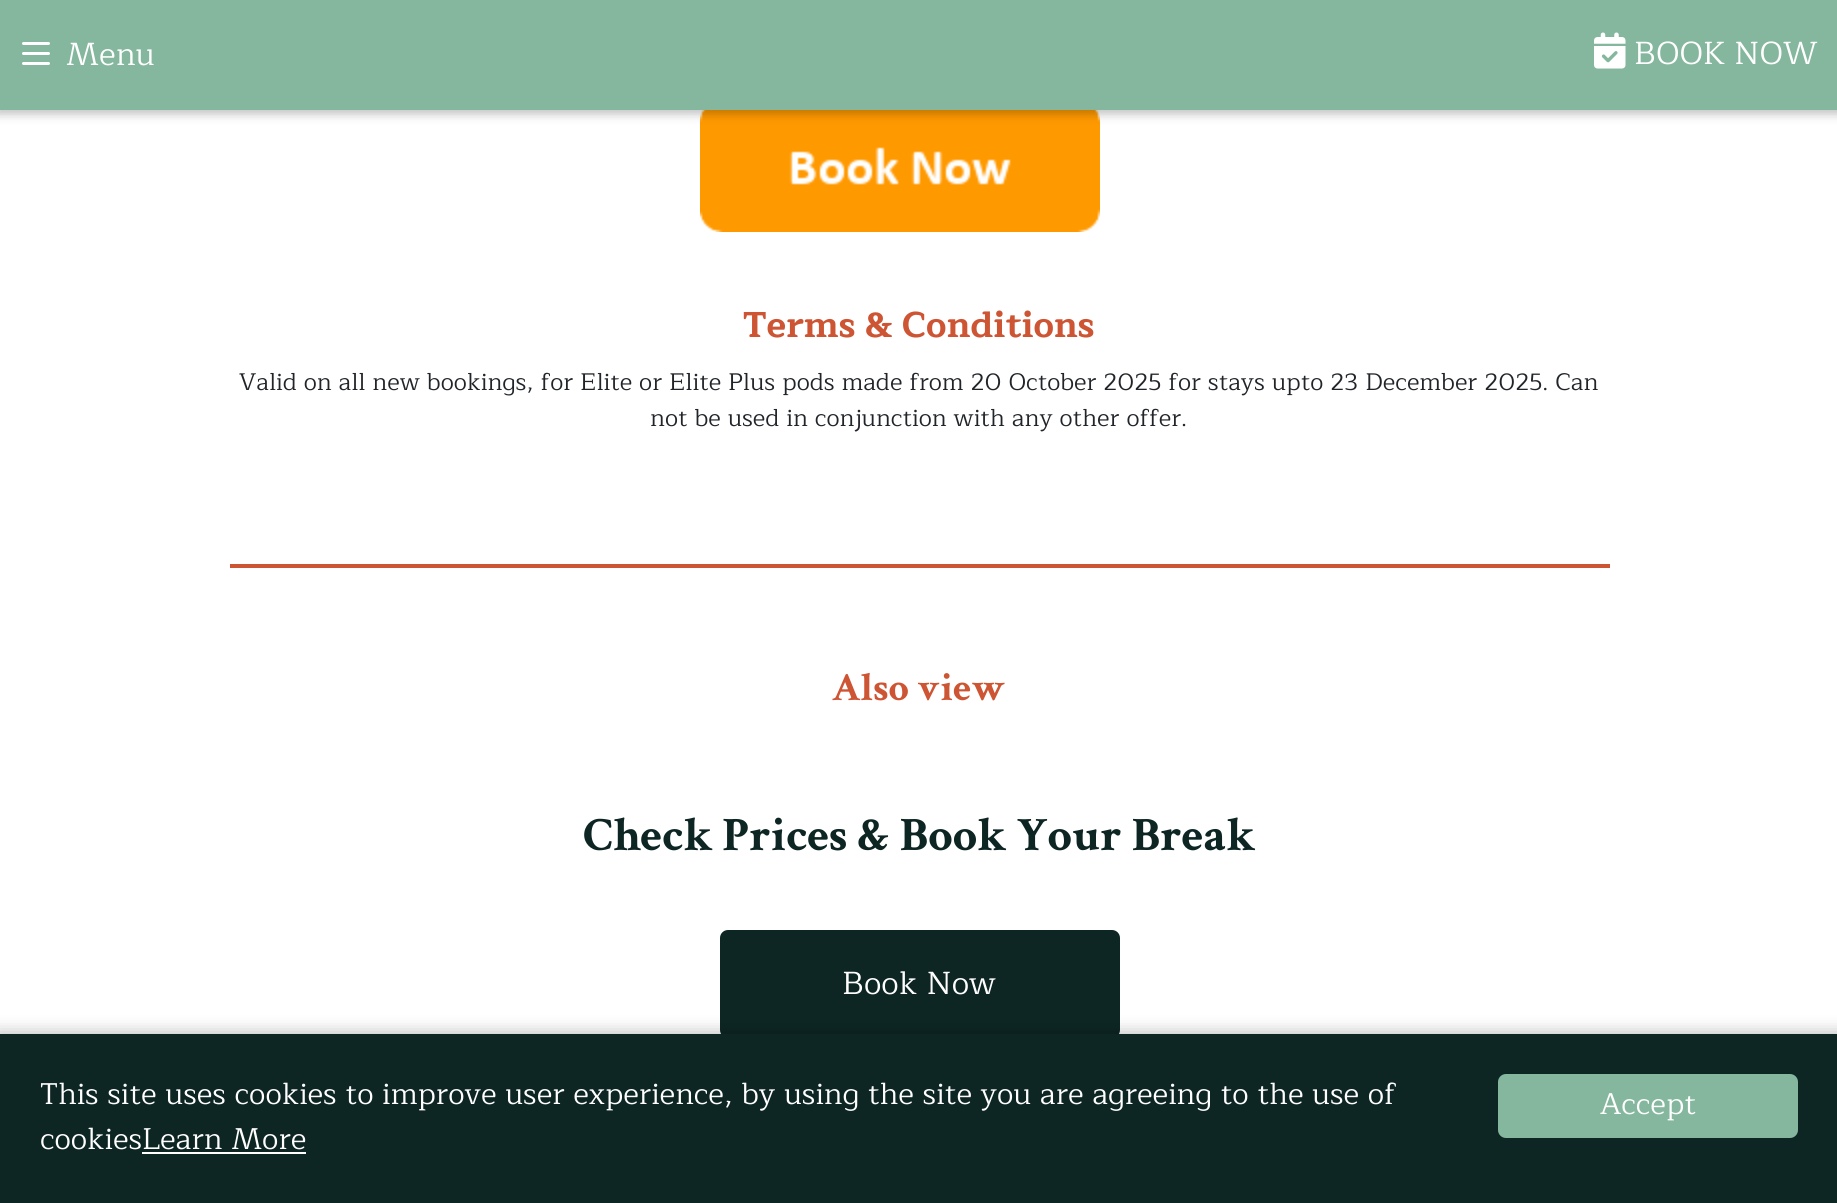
#include <cairo.h>
#include <math.h>
#include <stddef.h>

static cairo_t *ctx;

static void use_color(int r, int g, int b) {
    cairo_set_source_rgb(ctx, r / 255.0, g / 255.0, b / 255.0);
}

static void round_rect(double x, double y, double w, double h, double r) {
    cairo_new_sub_path(ctx);
    cairo_arc(ctx, x + w - r, y + h - r, r, 0, M_PI / 2);
    cairo_arc(ctx, x + r, y + h - r, r, M_PI / 2, M_PI);
    cairo_arc(ctx, x + r, y + r, r, M_PI, 1.5 * M_PI);
    cairo_arc(ctx, x + w - r, y + r, r, 1.5 * M_PI, 2 * M_PI);
    cairo_close_path(ctx);
}

static void shadow(double x, double y, double w, double h, double r, double blur, double alpha) {
    cairo_push_group_with_content(ctx, CAIRO_CONTENT_ALPHA);
    cairo_set_operator(ctx, CAIRO_OPERATOR_SOURCE);
    for (int i = 15; i >= -15 && fmin(w, h) + blur * i / 3 > 0; i -= 2) {
        double e = blur * i / 6;
        cairo_set_source_rgba(ctx, 0, 0, 0, alpha * erfc((i - 1) / 8.5) / 2);
        round_rect(x - e, y - e, w + 2 * e, h + 2 * e, fmax(0, fmin(r + e + blur * .6, fmin(w, h) / 2 + e)));
        cairo_fill(ctx);
    }
    cairo_pattern_t *soft = cairo_pop_group(ctx);
    cairo_mask(ctx, soft);
    cairo_pattern_destroy(soft);
}

static void picture(const char *path, double x, double y, double w, double h) {
    cairo_surface_t *image = cairo_image_surface_create_from_png(path);
    cairo_save(ctx);
    cairo_set_source_surface(ctx, image, x, y);
    cairo_rectangle(ctx, x, y, w, h);
    cairo_fill(ctx);
    cairo_restore(ctx);
    cairo_surface_destroy(image);
}

int main(void) {
    cairo_surface_t *surface = cairo_image_surface_create(CAIRO_FORMAT_RGB24, 1837, 1203);
    ctx = cairo_create(surface);
    cairo_font_options_t *options = cairo_font_options_create();
    cairo_font_options_set_hint_metrics(options, CAIRO_HINT_METRICS_OFF);
    cairo_font_options_set_hint_style(options, CAIRO_HINT_STYLE_NONE);
    cairo_set_font_options(ctx, options);
    cairo_set_miter_limit(ctx, 4);
    use_color(255, 255, 255);
    cairo_paint(ctx);
    picture("img3.png", 700, 110, 400, 122);
    use_color(0, 0, 0);
    shadow(-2, 0, 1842, 114, 0, 5, 0.25);
    use_color(132, 183, 157);
    cairo_rectangle(ctx, 0, 0, 1837, 110);
    cairo_fill(ctx);
    picture("img1.png", 22, 42, 28, 23);
    cairo_select_font_face(ctx, "Maitree", CAIRO_FONT_SLANT_NORMAL, CAIRO_FONT_WEIGHT_NORMAL);
    cairo_set_font_size(ctx, 32);
    use_color(255, 255, 255);
    cairo_move_to(ctx, 66, 65);
    cairo_show_text(ctx, "Menu");
    picture("img2.png", 1594, 32, 32, 37);
    cairo_move_to(ctx, 1634, 64);
    cairo_show_text(ctx, "BOOK NOW");
    cairo_select_font_face(ctx, "Maitree", CAIRO_FONT_SLANT_NORMAL, CAIRO_FONT_WEIGHT_BOLD);
    cairo_set_font_size(ctx, 36);
    use_color(205, 85, 52);
    cairo_move_to(ctx, 743, 337);
    cairo_show_text(ctx, "Terms & Conditions");
    cairo_select_font_face(ctx, "Maitree", CAIRO_FONT_SLANT_NORMAL, CAIRO_FONT_WEIGHT_NORMAL);
    cairo_set_font_size(ctx, 24);
    use_color(33, 37, 41);
    cairo_move_to(ctx, 239, 390);
    cairo_show_text(ctx, "Valid on all new bookings, for Elite or Elite Plus pods made from 20 October 2025 for stays upto 23 December 2025. Can");
    cairo_move_to(ctx, 650, 426);
    cairo_show_text(ctx, "not be used in conjunction with any other offer.");
    use_color(205, 85, 52);
    cairo_rectangle(ctx, 230, 564, 1380, 4);
    cairo_fill(ctx);
    cairo_select_font_face(ctx, "Crimson Text", CAIRO_FONT_SLANT_NORMAL, CAIRO_FONT_WEIGHT_BOLD);
    cairo_set_font_size(ctx, 40);
    cairo_move_to(ctx, 832, 700);
    cairo_show_text(ctx, "Also view");
    cairo_set_font_size(ctx, 48);
    use_color(13, 38, 36);
    cairo_move_to(ctx, 583, 850);
    cairo_show_text(ctx, "Check Prices & Book Your Break");
    round_rect(720, 930, 400, 108, 8);
    cairo_fill(ctx);
    cairo_select_font_face(ctx, "Maitree", CAIRO_FONT_SLANT_NORMAL, CAIRO_FONT_WEIGHT_NORMAL);
    cairo_set_font_size(ctx, 32);
    use_color(255, 255, 255);
    cairo_move_to(ctx, 842, 994);
    cairo_show_text(ctx, "Book Now");
    use_color(0, 0, 0);
    shadow(-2, 1032, 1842, 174, 0, 8, 0.25);
    use_color(13, 38, 36);
    cairo_rectangle(ctx, 0, 1034, 1837, 169);
    cairo_fill(ctx);
    cairo_set_font_size(ctx, 30);
    use_color(255, 255, 255);
    cairo_move_to(ctx, 40, 1104);
    cairo_show_text(ctx, "This site uses cookies to improve user experience, by using the site you are agreeing to the use of");
    cairo_move_to(ctx, 40, 1149);
    cairo_show_text(ctx, "cookiesLearn More");
    cairo_rectangle(ctx, 142, 1152, 164, 2);
    cairo_fill(ctx);
    use_color(132, 183, 157);
    round_rect(1498, 1074, 300, 64, 8);
    cairo_fill(ctx);
    use_color(255, 255, 255);
    cairo_move_to(ctx, 1600, 1114);
    cairo_show_text(ctx, "Accept");
    cairo_surface_write_to_png(surface, "result.png");
    cairo_font_options_destroy(options);
    cairo_destroy(ctx);
    cairo_surface_destroy(surface);
    return 0;
}
